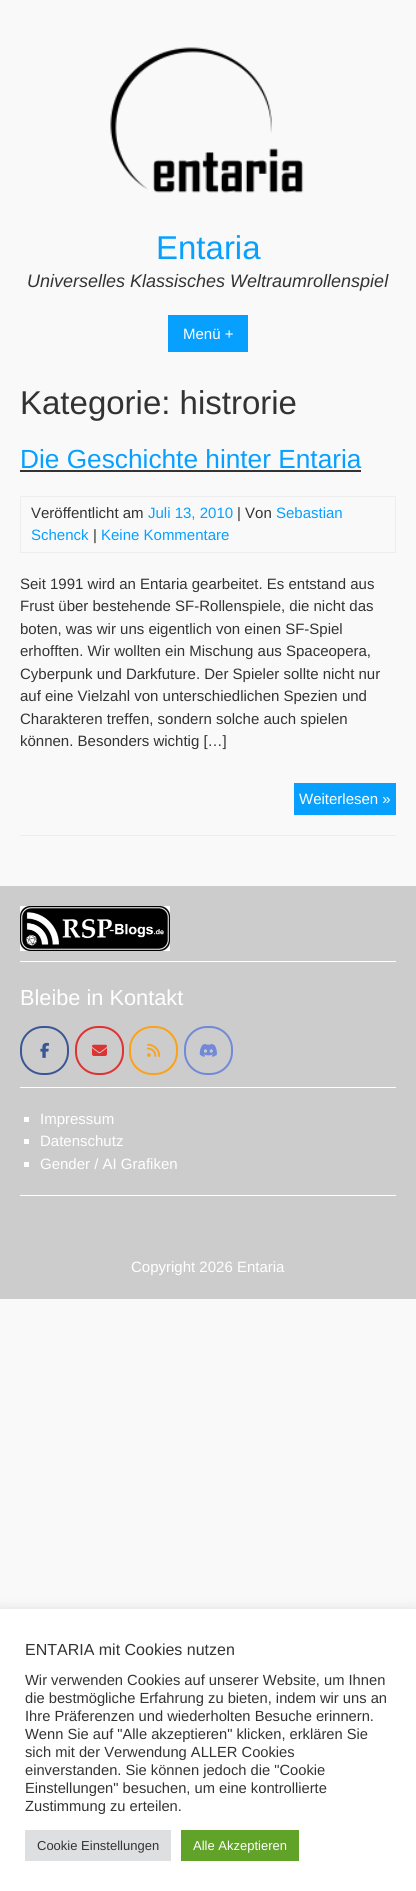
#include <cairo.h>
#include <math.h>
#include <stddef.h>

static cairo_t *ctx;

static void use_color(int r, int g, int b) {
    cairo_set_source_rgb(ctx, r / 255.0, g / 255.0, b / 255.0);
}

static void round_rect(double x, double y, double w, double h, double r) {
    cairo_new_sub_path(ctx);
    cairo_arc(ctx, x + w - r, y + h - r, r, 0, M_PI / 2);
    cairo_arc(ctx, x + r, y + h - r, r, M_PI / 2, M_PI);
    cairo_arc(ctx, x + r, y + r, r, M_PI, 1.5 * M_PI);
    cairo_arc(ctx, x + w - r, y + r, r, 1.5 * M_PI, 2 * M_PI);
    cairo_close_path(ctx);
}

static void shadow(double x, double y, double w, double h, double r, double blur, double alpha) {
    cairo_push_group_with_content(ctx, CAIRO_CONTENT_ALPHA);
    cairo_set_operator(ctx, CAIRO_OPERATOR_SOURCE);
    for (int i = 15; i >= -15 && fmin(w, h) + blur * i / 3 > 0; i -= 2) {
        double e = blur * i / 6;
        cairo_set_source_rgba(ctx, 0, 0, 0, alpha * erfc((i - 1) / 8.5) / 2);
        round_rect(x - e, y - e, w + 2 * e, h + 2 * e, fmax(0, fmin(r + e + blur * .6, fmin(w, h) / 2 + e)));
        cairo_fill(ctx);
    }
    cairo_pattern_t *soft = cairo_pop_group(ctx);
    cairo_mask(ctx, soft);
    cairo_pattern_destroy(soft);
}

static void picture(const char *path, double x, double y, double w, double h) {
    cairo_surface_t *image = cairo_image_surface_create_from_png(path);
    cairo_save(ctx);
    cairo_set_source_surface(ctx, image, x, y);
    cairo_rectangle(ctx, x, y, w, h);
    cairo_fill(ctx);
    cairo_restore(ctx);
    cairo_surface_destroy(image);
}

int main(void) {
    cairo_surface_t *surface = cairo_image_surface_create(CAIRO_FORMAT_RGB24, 416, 1891);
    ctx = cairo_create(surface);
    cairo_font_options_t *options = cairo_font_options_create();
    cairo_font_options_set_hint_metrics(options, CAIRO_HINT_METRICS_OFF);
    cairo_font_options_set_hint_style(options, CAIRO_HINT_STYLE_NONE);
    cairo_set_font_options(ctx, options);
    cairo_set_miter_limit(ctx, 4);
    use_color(249, 249, 249);
    cairo_paint(ctx);
    picture("img1.png", 110, 47, 194, 146);
    cairo_select_font_face(ctx, "Liberation Sans", CAIRO_FONT_SLANT_NORMAL, CAIRO_FONT_WEIGHT_NORMAL);
    cairo_set_font_size(ctx, 33);
    use_color(8, 160, 255);
    cairo_move_to(ctx, 156, 259);
    cairo_show_text(ctx, "Entaria");
    cairo_select_font_face(ctx, "Liberation Sans", CAIRO_FONT_SLANT_ITALIC, CAIRO_FONT_WEIGHT_NORMAL);
    cairo_set_font_size(ctx, 18);
    use_color(51, 51, 51);
    cairo_move_to(ctx, 27, 287);
    cairo_show_text(ctx, "Universelles Klassisches Weltraumrollenspiel");
    use_color(8, 160, 255);
    cairo_rectangle(ctx, 168, 315, 80, 37);
    cairo_fill(ctx);
    cairo_select_font_face(ctx, "Liberation Sans", CAIRO_FONT_SLANT_NORMAL, CAIRO_FONT_WEIGHT_NORMAL);
    cairo_set_font_size(ctx, 15);
    use_color(255, 255, 255);
    cairo_move_to(ctx, 183, 339);
    cairo_show_text(ctx, "Menü +");
    cairo_set_font_size(ctx, 33);
    use_color(51, 51, 51);
    cairo_move_to(ctx, 20, 414);
    cairo_show_text(ctx, "Kategorie: histrorie");
    use_color(238, 238, 238);
    cairo_rectangle(ctx, 20, 835, 376, 1);
    cairo_fill(ctx);
    cairo_set_font_size(ctx, 26.25);
    use_color(8, 160, 255);
    cairo_move_to(ctx, 20, 468);
    cairo_show_text(ctx, "Die Geschichte hinter Entaria");
    use_color(51, 51, 51);
    cairo_rectangle(ctx, 20, 470, 341, 2);
    cairo_fill(ctx);
    cairo_rectangle(ctx, 20.5, 496.5, 375, 56);
    use_color(238, 238, 238);
    cairo_set_line_width(ctx, 1);
    cairo_stroke(ctx);
    cairo_set_font_size(ctx, 15);
    use_color(51, 51, 51);
    cairo_move_to(ctx, 31, 518);
    cairo_show_text(ctx, "Veröffentlicht am");
    use_color(8, 160, 255);
    cairo_move_to(ctx, 148, 518);
    cairo_show_text(ctx, "Juli 13, 2010");
    use_color(51, 51, 51);
    cairo_move_to(ctx, 237, 518);
    cairo_show_text(ctx, "| Von");
    use_color(8, 160, 255);
    cairo_move_to(ctx, 276, 518);
    cairo_show_text(ctx, "Sebastian");
    cairo_move_to(ctx, 31, 540);
    cairo_show_text(ctx, "Schenck");
    use_color(51, 51, 51);
    cairo_move_to(ctx, 93, 540);
    cairo_show_text(ctx, "|");
    use_color(8, 160, 255);
    cairo_move_to(ctx, 101, 540);
    cairo_show_text(ctx, "Keine Kommentare");
    use_color(51, 51, 51);
    cairo_move_to(ctx, 20, 589);
    cairo_show_text(ctx, "Seit 1991 wird an Entaria gearbeitet. Es entstand aus");
    cairo_move_to(ctx, 20, 611);
    cairo_show_text(ctx, "Frust über bestehende SF-Rollenspiele, die nicht das");
    cairo_move_to(ctx, 20, 634);
    cairo_show_text(ctx, "boten, was wir uns eigentlich von einen SF-Spiel");
    cairo_move_to(ctx, 20, 656);
    cairo_show_text(ctx, "erhofften. Wir wollten ein Mischung aus Spaceopera,");
    cairo_move_to(ctx, 20, 679);
    cairo_show_text(ctx, "Cyberpunk und Darkfuture. Der Spieler sollte nicht nur");
    cairo_move_to(ctx, 20, 701);
    cairo_show_text(ctx, "auf eine Vielzahl von unterschiedlichen Spezien und");
    cairo_move_to(ctx, 20, 724);
    cairo_show_text(ctx, "Charakteren treffen, sondern solche auch spielen");
    cairo_move_to(ctx, 20, 746);
    cairo_show_text(ctx, "können. Besonders wichtig […]");
    use_color(8, 160, 255);
    cairo_rectangle(ctx, 294, 783, 102, 32);
    cairo_fill(ctx);
    use_color(255, 255, 255);
    cairo_move_to(ctx, 299, 804);
    cairo_show_text(ctx, "Weiterlesen »");
    use_color(204, 204, 204);
    cairo_rectangle(ctx, 0, 886, 416, 413);
    cairo_fill(ctx);
    use_color(255, 255, 255);
    cairo_rectangle(ctx, 20, 961, 376, 1);
    cairo_fill(ctx);
    picture("img2.png", 20, 906, 150, 45);
    cairo_rectangle(ctx, 20, 1087, 376, 1);
    cairo_fill(ctx);
    cairo_set_font_size(ctx, 21.75);
    cairo_move_to(ctx, 20, 1005);
    cairo_show_text(ctx, "Bleibe in Kontakt");
    round_rect(21, 1027, 47, 47, 22);
    use_color(58, 87, 149);
    cairo_set_line_width(ctx, 2);
    cairo_stroke(ctx);
    picture("img3.png", 40, 1042, 9, 16);
    round_rect(76, 1027, 47, 47, 22);
    use_color(221, 51, 51);
    cairo_stroke(ctx);
    picture("img4.png", 92, 1044, 15, 12);
    round_rect(130, 1027, 47, 47, 22);
    use_color(250, 162, 27);
    cairo_stroke(ctx);
    picture("img5.png", 147, 1043, 14, 14);
    round_rect(185, 1027, 47, 47, 22);
    use_color(114, 137, 218);
    cairo_stroke(ctx);
    picture("img6.png", 199, 1043, 18, 14);
    use_color(255, 255, 255);
    cairo_rectangle(ctx, 20, 1195, 376, 1);
    cairo_fill(ctx);
    cairo_rectangle(ctx, 24, 1117, 5, 5);
    cairo_fill(ctx);
    cairo_set_font_size(ctx, 15);
    cairo_move_to(ctx, 40, 1124);
    cairo_show_text(ctx, "Impressum");
    cairo_rectangle(ctx, 24, 1139, 5, 5);
    cairo_fill(ctx);
    cairo_move_to(ctx, 40, 1146);
    cairo_show_text(ctx, "Datenschutz");
    cairo_rectangle(ctx, 24, 1162, 5, 5);
    cairo_fill(ctx);
    cairo_move_to(ctx, 40, 1169);
    cairo_show_text(ctx, "Gender / AI Grafiken");
    cairo_move_to(ctx, 131, 1272);
    cairo_show_text(ctx, "Copyright 2026 Entaria");
    use_color(172, 171, 171);
    shadow(0, 1608, 416, 282, 0, 5, 0.3);
    use_color(255, 255, 255);
    cairo_rectangle(ctx, 0, 1609, 416, 282);
    cairo_fill(ctx);
    cairo_set_font_size(ctx, 16);
    use_color(51, 51, 51);
    cairo_move_to(ctx, 25, 1655);
    cairo_show_text(ctx, "ENTARIA mit Cookies nutzen");
    cairo_set_font_size(ctx, 14.7);
    cairo_move_to(ctx, 25, 1685);
    cairo_show_text(ctx, "Wir verwenden Cookies auf unserer Website, um Ihnen");
    cairo_move_to(ctx, 25, 1703);
    cairo_show_text(ctx, "die bestmögliche Erfahrung zu bieten, indem wir uns an");
    cairo_move_to(ctx, 25, 1721);
    cairo_show_text(ctx, "Ihre Präferenzen und wiederholten Besuche erinnern.");
    cairo_move_to(ctx, 25, 1739);
    cairo_show_text(ctx, "Wenn Sie auf \"Alle akzeptieren\" klicken, erklären Sie");
    cairo_move_to(ctx, 25, 1757);
    cairo_show_text(ctx, "sich mit der Verwendung ALLER Cookies");
    cairo_move_to(ctx, 25, 1775);
    cairo_show_text(ctx, "einverstanden. Sie können jedoch die \"Cookie");
    cairo_move_to(ctx, 25, 1793);
    cairo_show_text(ctx, "Einstellungen\" besuchen, um eine kontrollierte");
    cairo_move_to(ctx, 25, 1811);
    cairo_show_text(ctx, "Zustimmung zu erteilen.");
    use_color(222, 223, 224);
    cairo_rectangle(ctx, 25, 1830, 146, 31);
    cairo_fill(ctx);
    cairo_set_font_size(ctx, 13);
    use_color(51, 51, 51);
    cairo_move_to(ctx, 37, 1850);
    cairo_show_text(ctx, "Cookie Einstellungen");
    use_color(97, 162, 41);
    cairo_rectangle(ctx, 181, 1830, 118, 31);
    cairo_fill(ctx);
    use_color(255, 255, 255);
    cairo_move_to(ctx, 193, 1850);
    cairo_show_text(ctx, "Alle Akzeptieren");
    cairo_surface_write_to_png(surface, "result.png");
    cairo_font_options_destroy(options);
    cairo_destroy(ctx);
    cairo_surface_destroy(surface);
    return 0;
}
